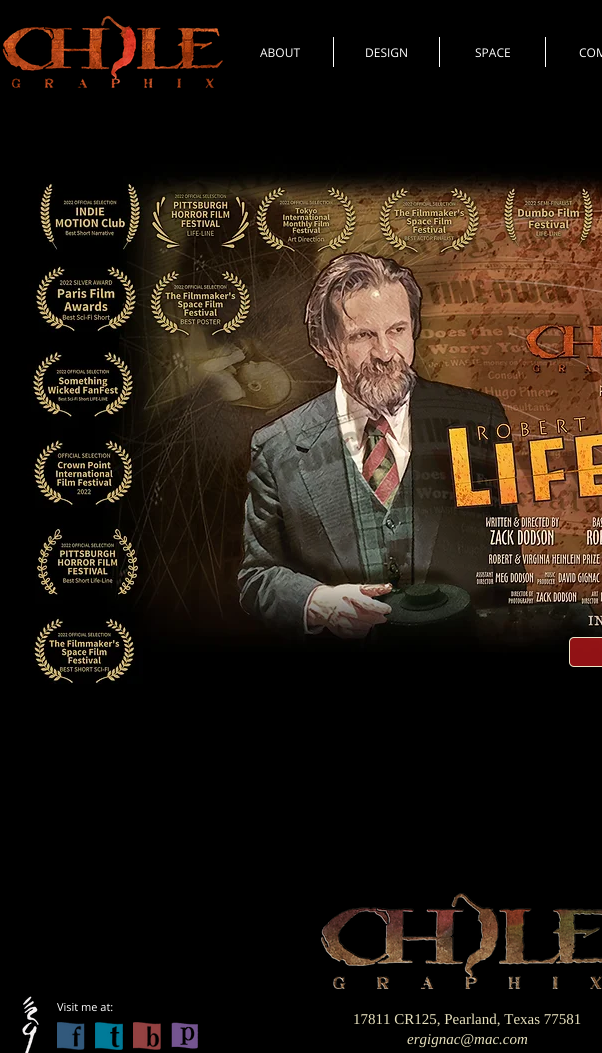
#include <cairo.h>
#include <math.h>
#include <stddef.h>

static cairo_t *ctx;

static void use_color(int r, int g, int b) {
    cairo_set_source_rgb(ctx, r / 255.0, g / 255.0, b / 255.0);
}

static void round_rect(double x, double y, double w, double h, double r) {
    cairo_new_sub_path(ctx);
    cairo_arc(ctx, x + w - r, y + h - r, r, 0, M_PI / 2);
    cairo_arc(ctx, x + r, y + h - r, r, M_PI / 2, M_PI);
    cairo_arc(ctx, x + r, y + r, r, M_PI, 1.5 * M_PI);
    cairo_arc(ctx, x + w - r, y + r, r, 1.5 * M_PI, 2 * M_PI);
    cairo_close_path(ctx);
}

static void picture(const char *path, double x, double y, double w, double h) {
    cairo_surface_t *image = cairo_image_surface_create_from_png(path);
    cairo_save(ctx);
    cairo_set_source_surface(ctx, image, x, y);
    cairo_rectangle(ctx, x, y, w, h);
    cairo_fill(ctx);
    cairo_restore(ctx);
    cairo_surface_destroy(image);
}

int main(void) {
    cairo_surface_t *surface = cairo_image_surface_create(CAIRO_FORMAT_RGB24, 602, 1053);
    ctx = cairo_create(surface);
    cairo_font_options_t *options = cairo_font_options_create();
    cairo_font_options_set_hint_metrics(options, CAIRO_HINT_METRICS_OFF);
    cairo_font_options_set_hint_style(options, CAIRO_HINT_STYLE_NONE);
    cairo_set_font_options(ctx, options);
    cairo_set_miter_limit(ctx, 4);
    use_color(0, 0, 0);
    cairo_paint(ctx);
    picture("img1.png", 2, 15, 221, 73);
    cairo_select_font_face(ctx, "Open Sans", CAIRO_FONT_SLANT_NORMAL, CAIRO_FONT_WEIGHT_NORMAL);
    cairo_set_font_size(ctx, 12);
    use_color(255, 255, 255);
    cairo_move_to(ctx, 260, 57);
    cairo_show_text(ctx, "ABOUT");
    cairo_rectangle(ctx, 333, 37, 1, 30);
    cairo_fill(ctx);
    cairo_move_to(ctx, 365, 57);
    cairo_show_text(ctx, "DESIGN");
    cairo_rectangle(ctx, 439, 37, 1, 30);
    cairo_fill(ctx);
    cairo_move_to(ctx, 475, 57);
    cairo_show_text(ctx, "SPACE");
    cairo_rectangle(ctx, 545, 37, 1, 30);
    cairo_fill(ctx);
    cairo_move_to(ctx, 579, 57);
    cairo_show_text(ctx, "COM");
    picture("img2.png", 0, 156, 602, 553);
    cairo_set_source_rgba(ctx, 0.886, 0.11, 0.129, 0.64);
    round_rect(569.5, 637.5, 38, 29, 4.5);
    cairo_fill_preserve(ctx);
    use_color(240, 233, 201);
    cairo_set_line_width(ctx, 1);
    cairo_stroke(ctx);
    picture("img3.png", 321, 893, 281, 96);
    picture("img4.png", 22, 996, 17, 57);
    cairo_set_font_size(ctx, 11);
    use_color(255, 255, 255);
    cairo_move_to(ctx, 57, 1011);
    cairo_show_text(ctx, "Visit me at:");
    picture("img5.png", 57, 1022, 28, 28);
    picture("img6.png", 95, 1022, 28, 28);
    picture("img7.png", 133, 1022, 28, 28);
    picture("img8.png", 171, 1022, 28, 27);
    cairo_select_font_face(ctx, "Liberation Serif", CAIRO_FONT_SLANT_NORMAL, CAIRO_FONT_WEIGHT_NORMAL);
    cairo_set_font_size(ctx, 15);
    use_color(232, 225, 190);
    cairo_move_to(ctx, 353, 1024);
    cairo_show_text(ctx, "17811 CR125, Pearland, Texas 77581");
    cairo_select_font_face(ctx, "Liberation Serif", CAIRO_FONT_SLANT_ITALIC, CAIRO_FONT_WEIGHT_NORMAL);
    cairo_move_to(ctx, 407, 1044);
    cairo_show_text(ctx, "ergignac@mac.com");
    cairo_surface_write_to_png(surface, "result.png");
    cairo_font_options_destroy(options);
    cairo_destroy(ctx);
    cairo_surface_destroy(surface);
    return 0;
}
